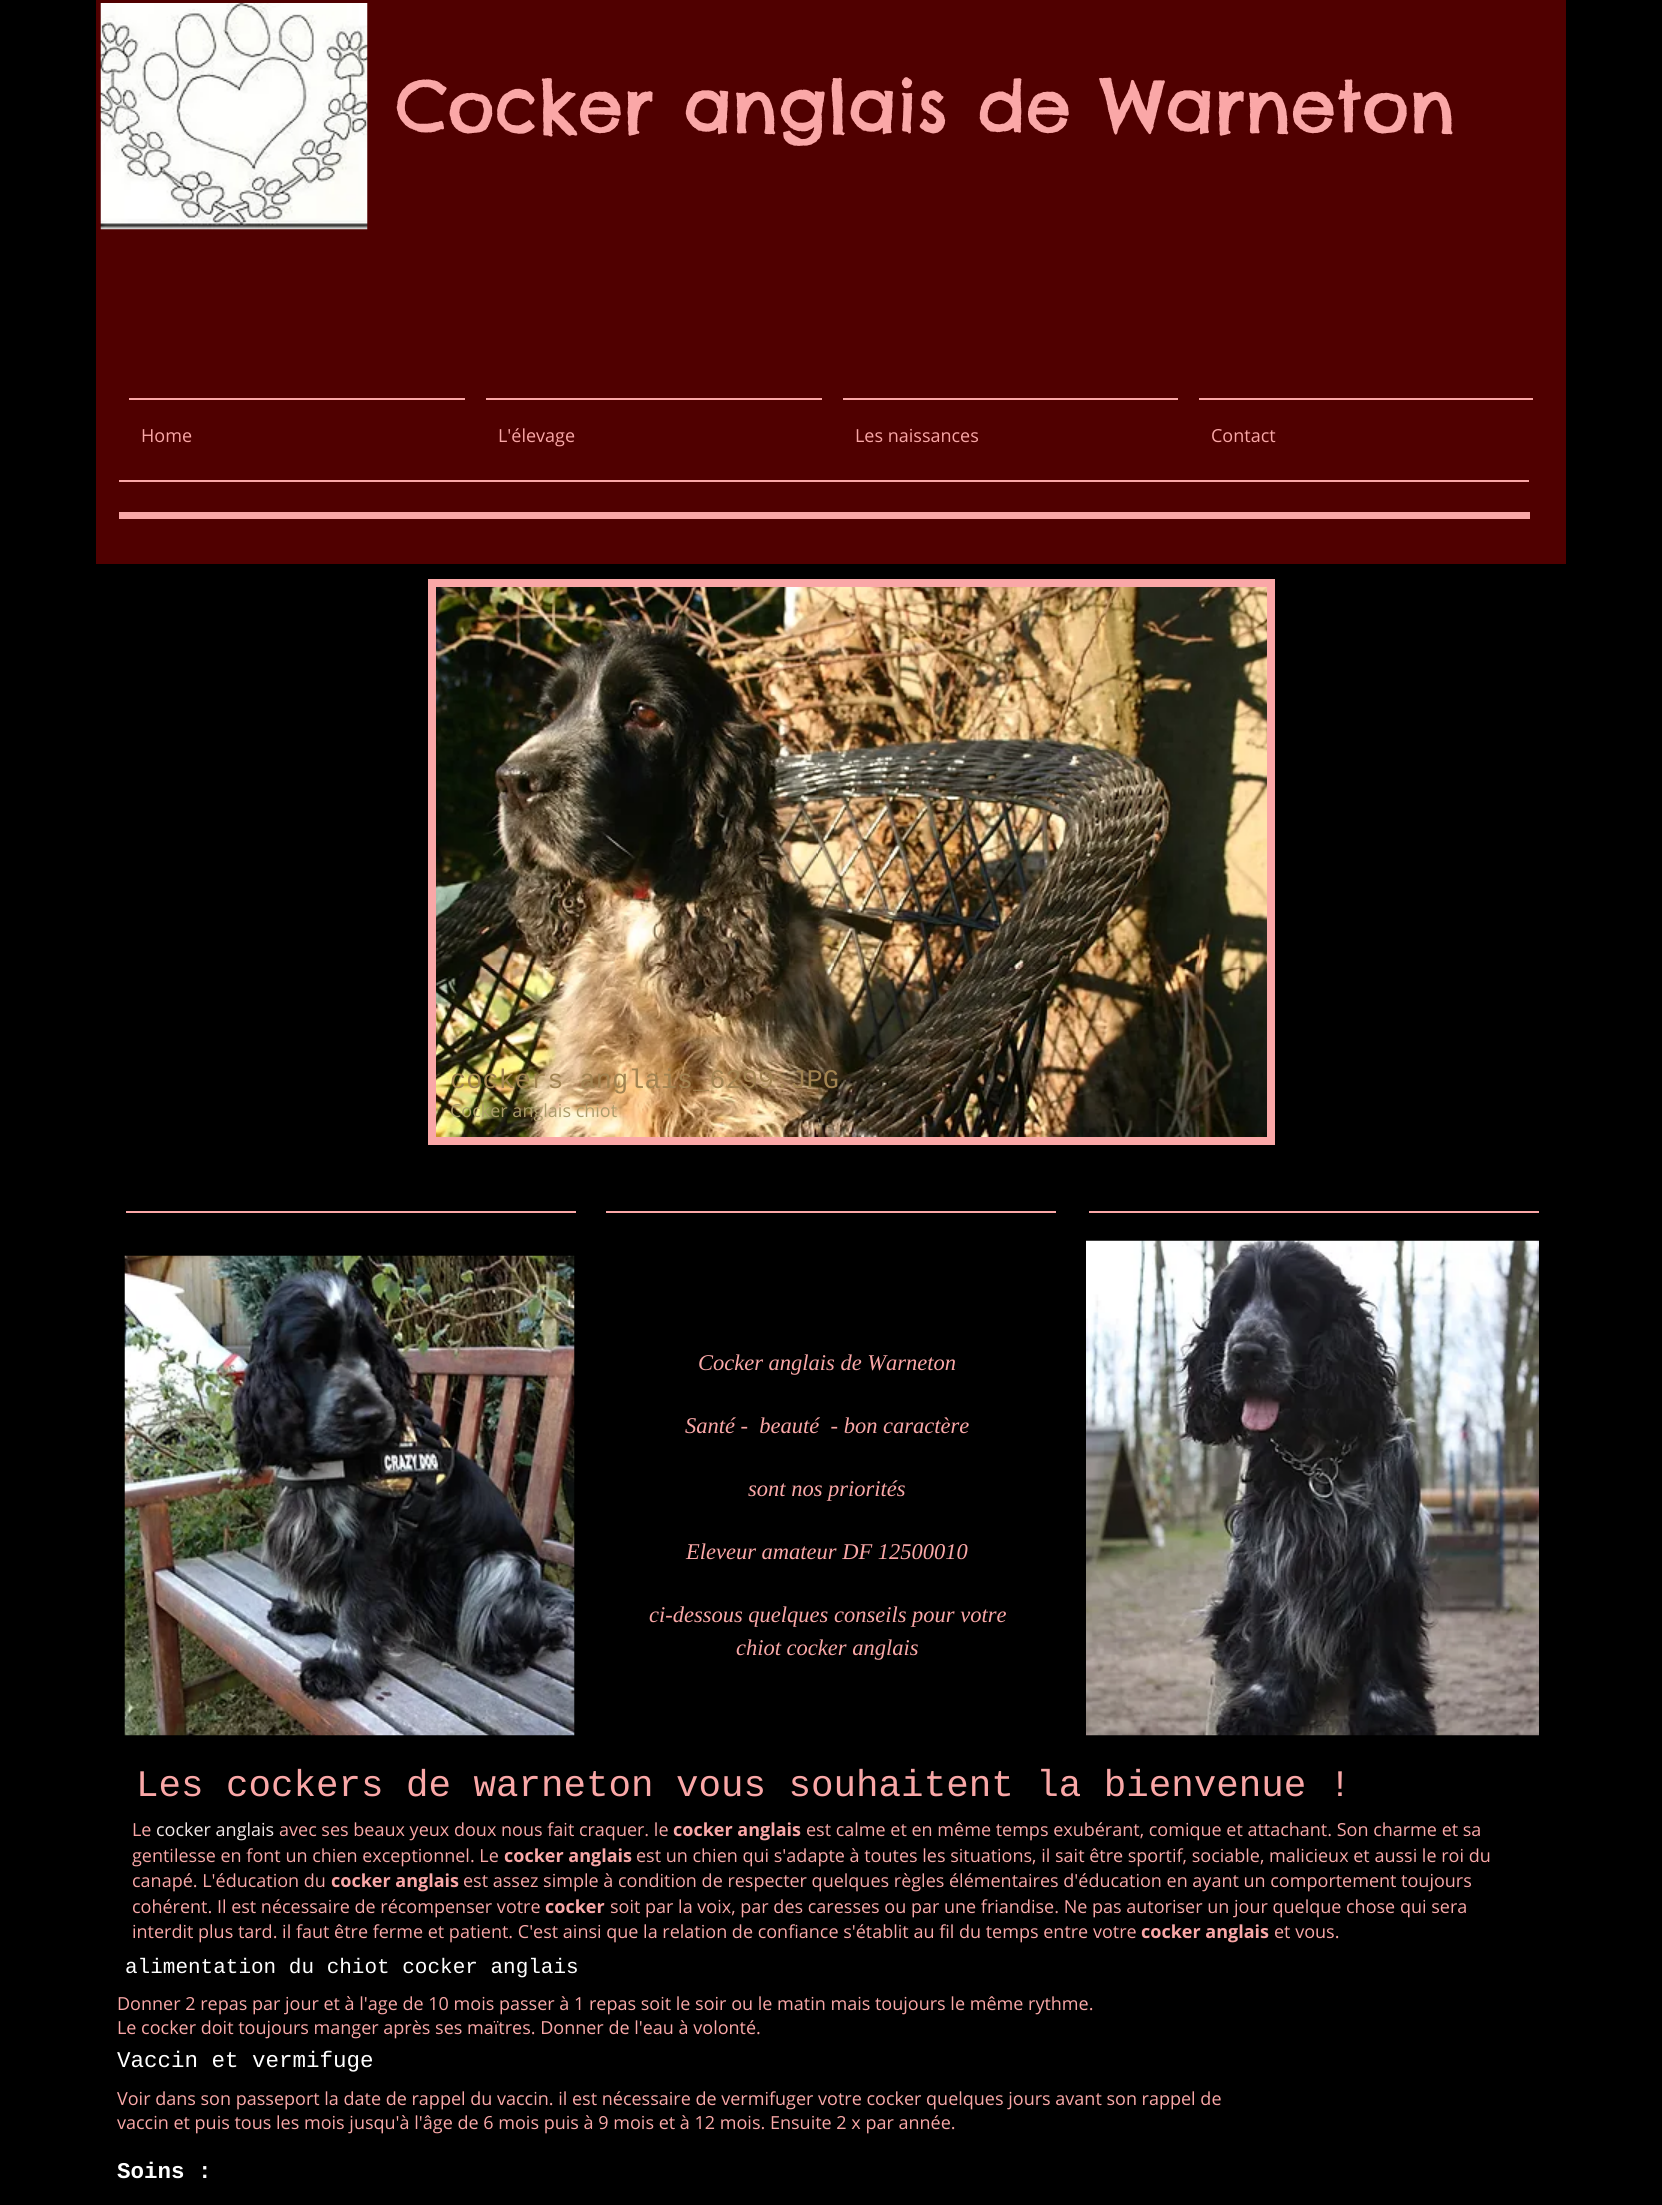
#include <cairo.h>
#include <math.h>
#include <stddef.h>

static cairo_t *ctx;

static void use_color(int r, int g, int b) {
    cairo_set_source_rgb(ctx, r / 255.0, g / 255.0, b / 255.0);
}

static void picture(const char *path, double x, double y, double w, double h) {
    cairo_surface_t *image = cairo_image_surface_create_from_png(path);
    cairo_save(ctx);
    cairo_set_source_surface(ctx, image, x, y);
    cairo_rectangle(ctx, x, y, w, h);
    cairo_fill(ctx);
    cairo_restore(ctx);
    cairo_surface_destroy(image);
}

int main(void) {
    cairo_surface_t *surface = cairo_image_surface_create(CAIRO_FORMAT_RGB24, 1662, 2205);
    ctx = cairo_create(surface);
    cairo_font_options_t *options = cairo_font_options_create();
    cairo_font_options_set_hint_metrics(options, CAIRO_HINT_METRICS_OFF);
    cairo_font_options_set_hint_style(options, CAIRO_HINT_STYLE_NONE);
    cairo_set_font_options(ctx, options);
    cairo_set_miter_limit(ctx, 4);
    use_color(0, 0, 0);
    cairo_paint(ctx);
    use_color(80, 0, 0);
    cairo_rectangle(ctx, 96, 0, 1470, 564);
    cairo_fill(ctx);
    picture("img1.png", 100, 3, 268, 227);
    cairo_select_font_face(ctx, "Chelsea Market", CAIRO_FONT_SLANT_NORMAL, CAIRO_FONT_WEIGHT_NORMAL);
    cairo_set_font_size(ctx, 72);
    use_color(250, 167, 167);
    cairo_move_to(ctx, 396, 132);
    cairo_show_text(ctx, "Cocker anglais de Warneton");
    cairo_rectangle(ctx, 129, 398, 336, 2);
    cairo_fill(ctx);
    cairo_select_font_face(ctx, "Open Sans", CAIRO_FONT_SLANT_NORMAL, CAIRO_FONT_WEIGHT_NORMAL);
    cairo_set_font_size(ctx, 18);
    cairo_move_to(ctx, 141, 442);
    cairo_show_text(ctx, "Home");
    cairo_rectangle(ctx, 486, 398, 336, 2);
    cairo_fill(ctx);
    cairo_move_to(ctx, 498, 442);
    cairo_show_text(ctx, "L'élevage");
    cairo_rectangle(ctx, 843, 398, 335, 2);
    cairo_fill(ctx);
    cairo_move_to(ctx, 855, 442);
    cairo_show_text(ctx, "Les naissances");
    cairo_rectangle(ctx, 1199, 398, 334, 2);
    cairo_fill(ctx);
    cairo_move_to(ctx, 1211, 442);
    cairo_show_text(ctx, "Contact");
    cairo_rectangle(ctx, 119, 480, 1410, 2);
    cairo_fill(ctx);
    cairo_rectangle(ctx, 119, 512, 1411, 7);
    cairo_fill(ctx);
    picture("img2.png", 436, 587, 831, 550);
    cairo_rectangle(ctx, 432, 583, 839, 558);
    cairo_set_line_width(ctx, 8);
    cairo_stroke(ctx);
    cairo_select_font_face(ctx, "Liberation Mono", CAIRO_FONT_SLANT_NORMAL, CAIRO_FONT_WEIGHT_NORMAL);
    cairo_set_font_size(ctx, 27);
    use_color(161, 131, 81);
    cairo_move_to(ctx, 450, 1088);
    cairo_show_text(ctx, "cockers anglais_6299.JPG");
    cairo_select_font_face(ctx, "Open Sans", CAIRO_FONT_SLANT_NORMAL, CAIRO_FONT_WEIGHT_NORMAL);
    cairo_set_font_size(ctx, 18);
    use_color(172, 156, 107);
    cairo_move_to(ctx, 450, 1117);
    cairo_show_text(ctx, "Cocker anglais chiot");
    use_color(250, 167, 167);
    cairo_rectangle(ctx, 126, 1211, 450, 2);
    cairo_fill(ctx);
    cairo_rectangle(ctx, 606, 1211, 450, 2);
    cairo_fill(ctx);
    cairo_rectangle(ctx, 1089, 1211, 450, 2);
    cairo_fill(ctx);
    picture("img3.png", 124, 1255, 451, 481);
    cairo_select_font_face(ctx, "Liberation Serif", CAIRO_FONT_SLANT_ITALIC, CAIRO_FONT_WEIGHT_NORMAL);
    cairo_set_font_size(ctx, 22.5);
    cairo_move_to(ctx, 698, 1370);
    cairo_show_text(ctx, "Cocker anglais de Warneton");
    cairo_move_to(ctx, 685, 1433);
    cairo_show_text(ctx, "Santé -  beauté  - bon caractère");
    cairo_move_to(ctx, 748, 1496);
    cairo_show_text(ctx, "sont nos priorités");
    cairo_move_to(ctx, 686, 1559);
    cairo_show_text(ctx, "Eleveur amateur DF 12500010");
    cairo_move_to(ctx, 649, 1622);
    cairo_show_text(ctx, "ci-dessous quelques conseils pour votre");
    cairo_move_to(ctx, 736, 1655);
    cairo_show_text(ctx, "chiot cocker anglais");
    picture("img4.png", 1086, 1240, 453, 496);
    cairo_select_font_face(ctx, "Liberation Mono", CAIRO_FONT_SLANT_NORMAL, CAIRO_FONT_WEIGHT_NORMAL);
    cairo_set_font_size(ctx, 37.5);
    cairo_move_to(ctx, 136, 1796);
    cairo_show_text(ctx, "Les cockers de warneton vous souhaitent la bienvenue !");
    cairo_select_font_face(ctx, "Open Sans", CAIRO_FONT_SLANT_NORMAL, CAIRO_FONT_WEIGHT_NORMAL);
    cairo_set_font_size(ctx, 18);
    cairo_move_to(ctx, 132, 1836);
    cairo_show_text(ctx, "Le");
    use_color(242, 232, 232);
    cairo_move_to(ctx, 156, 1836);
    cairo_show_text(ctx, "cocker anglais");
    use_color(250, 167, 167);
    cairo_move_to(ctx, 279, 1836);
    cairo_show_text(ctx, "avec ses beaux yeux doux nous fait craquer. le");
    cairo_select_font_face(ctx, "Open Sans", CAIRO_FONT_SLANT_NORMAL, CAIRO_FONT_WEIGHT_BOLD);
    cairo_move_to(ctx, 673, 1836);
    cairo_show_text(ctx, "cocker anglais");
    cairo_select_font_face(ctx, "Open Sans", CAIRO_FONT_SLANT_NORMAL, CAIRO_FONT_WEIGHT_NORMAL);
    cairo_move_to(ctx, 806, 1836);
    cairo_show_text(ctx, "est calme et en même temps exubérant, comique et attachant. Son charme et sa");
    cairo_move_to(ctx, 132, 1862);
    cairo_show_text(ctx, "gentilesse en font un chien exceptionnel. Le");
    cairo_select_font_face(ctx, "Open Sans", CAIRO_FONT_SLANT_NORMAL, CAIRO_FONT_WEIGHT_BOLD);
    cairo_move_to(ctx, 504, 1862);
    cairo_show_text(ctx, "cocker anglais");
    cairo_select_font_face(ctx, "Open Sans", CAIRO_FONT_SLANT_NORMAL, CAIRO_FONT_WEIGHT_NORMAL);
    cairo_move_to(ctx, 636, 1862);
    cairo_show_text(ctx, "est un chien qui s'adapte à toutes les situations, il sait être sportif, sociable, malicieux et aussi le roi du");
    cairo_move_to(ctx, 132, 1887);
    cairo_show_text(ctx, "canapé. L'éducation du");
    cairo_select_font_face(ctx, "Open Sans", CAIRO_FONT_SLANT_NORMAL, CAIRO_FONT_WEIGHT_BOLD);
    cairo_move_to(ctx, 331, 1887);
    cairo_show_text(ctx, "cocker anglais");
    cairo_select_font_face(ctx, "Open Sans", CAIRO_FONT_SLANT_NORMAL, CAIRO_FONT_WEIGHT_NORMAL);
    cairo_move_to(ctx, 463, 1887);
    cairo_show_text(ctx, "est assez simple à condition de respecter quelques règles élémentaires d'éducation en ayant un comportement toujours");
    cairo_move_to(ctx, 132, 1913);
    cairo_show_text(ctx, "cohérent. Il est nécessaire de récompenser votre");
    cairo_select_font_face(ctx, "Open Sans", CAIRO_FONT_SLANT_NORMAL, CAIRO_FONT_WEIGHT_BOLD);
    cairo_move_to(ctx, 545, 1913);
    cairo_show_text(ctx, "cocker");
    cairo_select_font_face(ctx, "Open Sans", CAIRO_FONT_SLANT_NORMAL, CAIRO_FONT_WEIGHT_NORMAL);
    cairo_move_to(ctx, 610, 1913);
    cairo_show_text(ctx, "soit par la voix, par des caresses ou par une friandise. Ne pas autoriser un jour quelque chose qui sera");
    cairo_move_to(ctx, 132, 1938);
    cairo_show_text(ctx, "interdit plus tard. il faut être ferme et patient. C'est ainsi que la relation de confiance s'établit au fil du temps entre votre");
    cairo_select_font_face(ctx, "Open Sans", CAIRO_FONT_SLANT_NORMAL, CAIRO_FONT_WEIGHT_BOLD);
    cairo_move_to(ctx, 1141, 1938);
    cairo_show_text(ctx, "cocker anglais");
    cairo_select_font_face(ctx, "Open Sans", CAIRO_FONT_SLANT_NORMAL, CAIRO_FONT_WEIGHT_NORMAL);
    cairo_move_to(ctx, 1274, 1938);
    cairo_show_text(ctx, "et vous.");
    cairo_select_font_face(ctx, "Liberation Mono", CAIRO_FONT_SLANT_NORMAL, CAIRO_FONT_WEIGHT_NORMAL);
    cairo_set_font_size(ctx, 21);
    use_color(255, 255, 255);
    cairo_move_to(ctx, 125, 1973);
    cairo_show_text(ctx, "alimentation du chiot cocker anglais");
    cairo_select_font_face(ctx, "Open Sans", CAIRO_FONT_SLANT_NORMAL, CAIRO_FONT_WEIGHT_NORMAL);
    cairo_set_font_size(ctx, 18);
    use_color(250, 167, 167);
    cairo_move_to(ctx, 117, 2010);
    cairo_show_text(ctx, "Donner 2 repas par jour et à l'age de 10 mois passer à 1 repas soit le soir ou le matin mais toujours le même rythme.");
    cairo_move_to(ctx, 117, 2034);
    cairo_show_text(ctx, "Le cocker doit toujours manger après ses maïtres. Donner de l'eau à volonté.");
    cairo_select_font_face(ctx, "Liberation Mono", CAIRO_FONT_SLANT_NORMAL, CAIRO_FONT_WEIGHT_NORMAL);
    cairo_set_font_size(ctx, 22.5);
    use_color(255, 255, 255);
    cairo_move_to(ctx, 117, 2067);
    cairo_show_text(ctx, "Vaccin et vermifuge");
    cairo_select_font_face(ctx, "Open Sans", CAIRO_FONT_SLANT_NORMAL, CAIRO_FONT_WEIGHT_NORMAL);
    cairo_set_font_size(ctx, 18);
    use_color(250, 167, 167);
    cairo_move_to(ctx, 117, 2105);
    cairo_show_text(ctx, "Voir dans son passeport la date de rappel du vaccin. il est nécessaire de vermifuger votre cocker quelques jours avant son rappel de");
    cairo_move_to(ctx, 117, 2129);
    cairo_show_text(ctx, "vaccin et puis tous les mois jusqu'à l'âge de 6 mois puis à 9 mois et à 12 mois. Ensuite 2 x par année.");
    cairo_select_font_face(ctx, "Liberation Mono", CAIRO_FONT_SLANT_NORMAL, CAIRO_FONT_WEIGHT_BOLD);
    cairo_set_font_size(ctx, 22.5);
    use_color(255, 255, 255);
    cairo_move_to(ctx, 117, 2178);
    cairo_show_text(ctx, "Soins :");
    cairo_surface_write_to_png(surface, "result.png");
    cairo_font_options_destroy(options);
    cairo_destroy(ctx);
    cairo_surface_destroy(surface);
    return 0;
}
